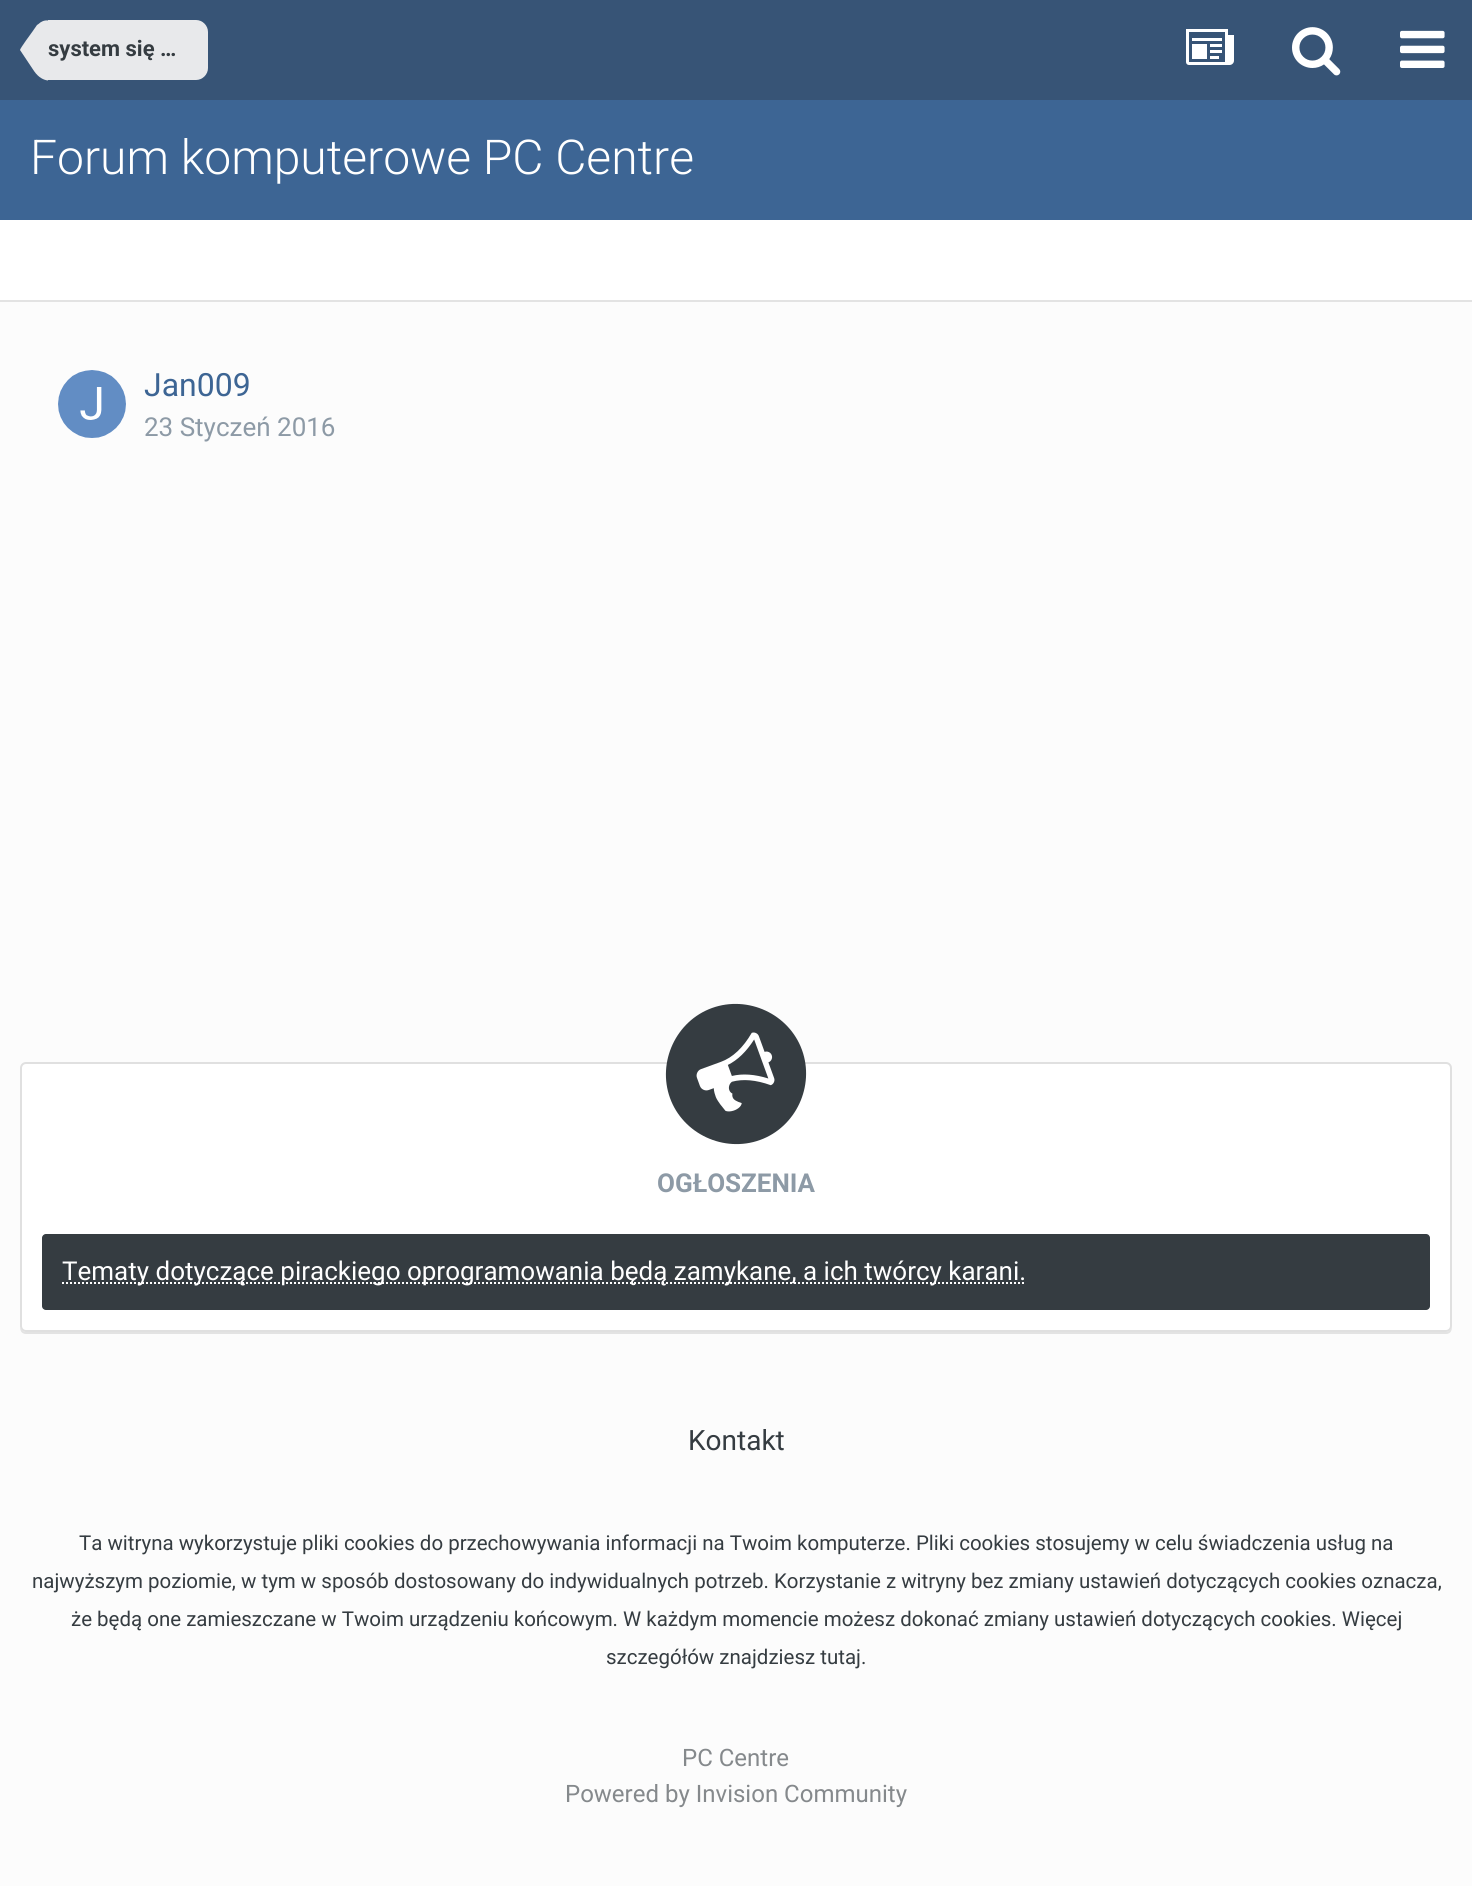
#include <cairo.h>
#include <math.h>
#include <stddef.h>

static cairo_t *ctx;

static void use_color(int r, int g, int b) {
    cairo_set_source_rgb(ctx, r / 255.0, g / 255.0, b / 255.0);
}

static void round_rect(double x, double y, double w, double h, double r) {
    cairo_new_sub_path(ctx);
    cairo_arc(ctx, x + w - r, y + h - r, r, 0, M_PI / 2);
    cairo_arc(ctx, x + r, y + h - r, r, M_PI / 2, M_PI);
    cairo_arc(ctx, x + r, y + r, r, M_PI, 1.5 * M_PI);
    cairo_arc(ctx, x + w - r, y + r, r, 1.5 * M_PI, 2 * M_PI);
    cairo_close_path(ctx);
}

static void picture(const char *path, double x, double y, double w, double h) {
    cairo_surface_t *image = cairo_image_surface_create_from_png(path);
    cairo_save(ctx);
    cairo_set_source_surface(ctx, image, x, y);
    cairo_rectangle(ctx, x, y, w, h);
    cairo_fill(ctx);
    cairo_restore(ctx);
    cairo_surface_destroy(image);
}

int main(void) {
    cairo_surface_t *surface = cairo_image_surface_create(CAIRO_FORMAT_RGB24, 1472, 1886);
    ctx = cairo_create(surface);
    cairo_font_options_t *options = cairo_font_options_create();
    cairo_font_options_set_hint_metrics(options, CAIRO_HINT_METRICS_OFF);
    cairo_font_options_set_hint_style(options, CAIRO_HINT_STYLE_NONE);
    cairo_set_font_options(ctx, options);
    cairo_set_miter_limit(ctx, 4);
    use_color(252, 252, 252);
    cairo_paint(ctx);
    use_color(227, 227, 227);
    cairo_rectangle(ctx, 0, 300, 1472, 2);
    cairo_fill(ctx);
    use_color(55, 84, 118);
    cairo_rectangle(ctx, 0, 0, 1472, 100);
    cairo_fill(ctx);
    use_color(232, 233, 235);
    cairo_new_path(ctx);
    cairo_move_to(ctx, 48, 20);
    cairo_line_to(ctx, 196, 20);
    cairo_curve_to(ctx, 202.5, 20, 208, 25.5, 208, 32);
    cairo_line_to(ctx, 208, 68);
    cairo_curve_to(ctx, 208, 74.5, 202.5, 80, 196, 80);
    cairo_line_to(ctx, 48, 80);
    cairo_close_path(ctx);
    cairo_fill(ctx);
    cairo_new_path(ctx);
    cairo_move_to(ctx, 48, 50);
    cairo_line_to(ctx, 48, 80.5);
    cairo_curve_to(ctx, 43.5, 80, 38.5, 77.5, 34, 71);
    cairo_line_to(ctx, 20, 50);
    cairo_close_path(ctx);
    cairo_move_to(ctx, 48, 50);
    cairo_line_to(ctx, 20, 50);
    cairo_curve_to(ctx, 20, 48.5, 31, 33.5, 32.5, 31.5);
    cairo_line_to(ctx, 37, 25);
    cairo_line_to(ctx, 38.5, 24);
    cairo_curve_to(ctx, 41, 21.5, 44.5, 20, 48, 20.5);
    cairo_close_path(ctx);
    cairo_fill(ctx);
    cairo_select_font_face(ctx, "Roboto", CAIRO_FONT_SLANT_NORMAL, CAIRO_FONT_WEIGHT_BOLD);
    cairo_set_font_size(ctx, 22);
    use_color(53, 60, 65);
    cairo_move_to(ctx, 48, 56);
    cairo_show_text(ctx, "system się …");
    picture("img1.png", 1186, 29, 48, 36);
    picture("img2.png", 1292, 27, 49, 49);
    picture("img3.png", 1400, 30, 45, 38);
    use_color(61, 101, 148);
    cairo_rectangle(ctx, 0, 100, 1472, 120);
    cairo_fill(ctx);
    cairo_select_font_face(ctx, "Roboto Light", CAIRO_FONT_SLANT_NORMAL, CAIRO_FONT_WEIGHT_NORMAL);
    cairo_set_font_size(ctx, 48);
    use_color(255, 255, 255);
    cairo_move_to(ctx, 30, 174);
    cairo_show_text(ctx, "Forum komputerowe PC Centre");
    cairo_rectangle(ctx, 0, 220, 1472, 80);
    cairo_fill(ctx);
    cairo_arc(ctx, 92, 404, 34, 0, 2 * M_PI);
    cairo_fill(ctx);
    picture("img4.png", 58, 370, 68, 68);
    cairo_select_font_face(ctx, "Roboto", CAIRO_FONT_SLANT_NORMAL, CAIRO_FONT_WEIGHT_NORMAL);
    cairo_set_font_size(ctx, 32);
    use_color(61, 101, 148);
    cairo_move_to(ctx, 144, 396);
    cairo_show_text(ctx, "Jan009");
    cairo_set_font_size(ctx, 26);
    use_color(141, 154, 166);
    cairo_move_to(ctx, 144, 436);
    cairo_show_text(ctx, "23 Styczeń 2016");
    use_color(227, 227, 227);
    cairo_new_path(ctx);
    cairo_move_to(ctx, 20, 1326);
    cairo_curve_to(ctx, 20, 1330, 21, 1334, 26, 1334);
    cairo_line_to(ctx, 1446, 1334);
    cairo_curve_to(ctx, 1451, 1334, 1452, 1330, 1452, 1326);
    cairo_curve_to(ctx, 1452, 1329, 1449, 1332, 1446, 1332);
    cairo_line_to(ctx, 26, 1332);
    cairo_curve_to(ctx, 23, 1332, 20, 1329, 20, 1326);
    cairo_close_path(ctx);
    cairo_fill(ctx);
    use_color(255, 255, 255);
    round_rect(21, 1063, 1430, 268, 5);
    cairo_fill_preserve(ctx);
    use_color(224, 224, 224);
    cairo_stroke(ctx);
    use_color(53, 60, 65);
    cairo_new_path(ctx);
    cairo_move_to(ctx, 712, 1008);
    cairo_curve_to(ctx, 748, 995, 789, 1014, 802, 1050);
    cairo_curve_to(ctx, 815, 1086, 796, 1127, 760, 1140);
    cairo_curve_to(ctx, 724, 1153, 683, 1134, 670, 1098);
    cairo_curve_to(ctx, 657, 1062, 676, 1021, 712, 1008);
    cairo_close_path(ctx);
    cairo_fill(ctx);
    picture("img5.png", 696, 1032, 79, 80);
    cairo_select_font_face(ctx, "Roboto", CAIRO_FONT_SLANT_NORMAL, CAIRO_FONT_WEIGHT_BOLD);
    use_color(141, 154, 166);
    cairo_move_to(ctx, 657, 1192);
    cairo_show_text(ctx, "OGŁOSZENIA");
    use_color(53, 60, 65);
    round_rect(42, 1234, 1388, 76, 4);
    cairo_fill(ctx);
    cairo_new_path(ctx);
    cairo_move_to(ctx, 62, 1283);
    cairo_line_to(ctx, 1026, 1283);
    use_color(255, 255, 255);
    cairo_set_dash(ctx, (double[]){2, 2}, 2, 0);
    cairo_stroke(ctx);
    cairo_select_font_face(ctx, "Roboto", CAIRO_FONT_SLANT_NORMAL, CAIRO_FONT_WEIGHT_NORMAL);
    cairo_move_to(ctx, 62, 1280);
    cairo_show_text(ctx, "Tematy dotyczące pirackiego oprogramowania będą zamykane, a ich twórcy karani.");
    cairo_set_font_size(ctx, 28);
    use_color(53, 60, 65);
    cairo_move_to(ctx, 688, 1450);
    cairo_show_text(ctx, "Kontakt");
    cairo_set_font_size(ctx, 20.48);
    cairo_move_to(ctx, 79, 1550);
    cairo_show_text(ctx, "Ta witryna wykorzystuje pliki cookies do przechowywania informacji na Twoim komputerze. Pliki cookies stosujemy w celu świadczenia usług na");
    cairo_move_to(ctx, 32, 1588);
    cairo_show_text(ctx, "najwyższym poziomie, w tym w sposób dostosowany do indywidualnych potrzeb. Korzystanie z witryny bez zmiany ustawień dotyczących cookies oznacza,");
    cairo_move_to(ctx, 71, 1626);
    cairo_show_text(ctx, "że będą one zamieszczane w Twoim urządzeniu końcowym. W każdym momencie możesz dokonać zmiany ustawień dotyczących cookies. Więcej");
    cairo_move_to(ctx, 606, 1664);
    cairo_show_text(ctx, "szczegółów znajdziesz tutaj.");
    cairo_set_font_size(ctx, 24);
    use_color(133, 137, 140);
    cairo_move_to(ctx, 682, 1766);
    cairo_show_text(ctx, "PC Centre");
    cairo_move_to(ctx, 565, 1802);
    cairo_show_text(ctx, "Powered by Invision Community");
    cairo_surface_write_to_png(surface, "result.png");
    cairo_font_options_destroy(options);
    cairo_destroy(ctx);
    cairo_surface_destroy(surface);
    return 0;
}
